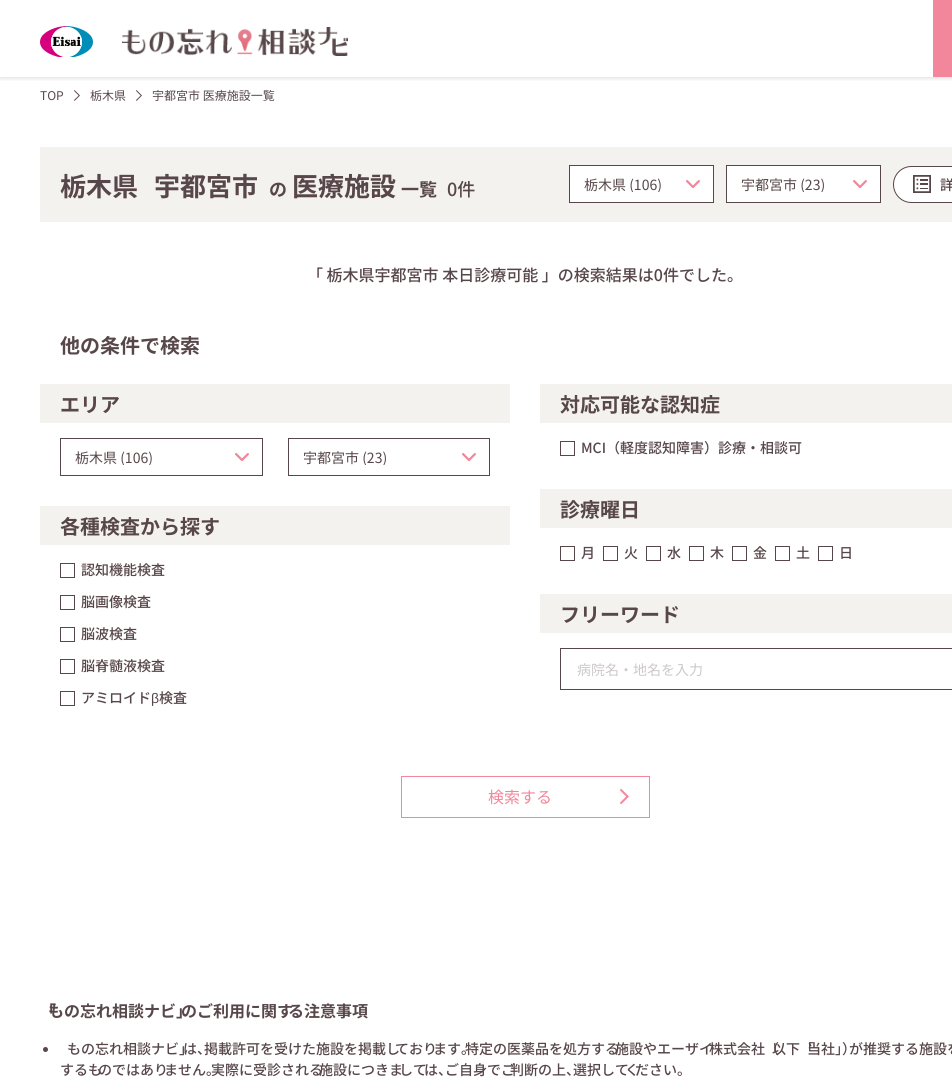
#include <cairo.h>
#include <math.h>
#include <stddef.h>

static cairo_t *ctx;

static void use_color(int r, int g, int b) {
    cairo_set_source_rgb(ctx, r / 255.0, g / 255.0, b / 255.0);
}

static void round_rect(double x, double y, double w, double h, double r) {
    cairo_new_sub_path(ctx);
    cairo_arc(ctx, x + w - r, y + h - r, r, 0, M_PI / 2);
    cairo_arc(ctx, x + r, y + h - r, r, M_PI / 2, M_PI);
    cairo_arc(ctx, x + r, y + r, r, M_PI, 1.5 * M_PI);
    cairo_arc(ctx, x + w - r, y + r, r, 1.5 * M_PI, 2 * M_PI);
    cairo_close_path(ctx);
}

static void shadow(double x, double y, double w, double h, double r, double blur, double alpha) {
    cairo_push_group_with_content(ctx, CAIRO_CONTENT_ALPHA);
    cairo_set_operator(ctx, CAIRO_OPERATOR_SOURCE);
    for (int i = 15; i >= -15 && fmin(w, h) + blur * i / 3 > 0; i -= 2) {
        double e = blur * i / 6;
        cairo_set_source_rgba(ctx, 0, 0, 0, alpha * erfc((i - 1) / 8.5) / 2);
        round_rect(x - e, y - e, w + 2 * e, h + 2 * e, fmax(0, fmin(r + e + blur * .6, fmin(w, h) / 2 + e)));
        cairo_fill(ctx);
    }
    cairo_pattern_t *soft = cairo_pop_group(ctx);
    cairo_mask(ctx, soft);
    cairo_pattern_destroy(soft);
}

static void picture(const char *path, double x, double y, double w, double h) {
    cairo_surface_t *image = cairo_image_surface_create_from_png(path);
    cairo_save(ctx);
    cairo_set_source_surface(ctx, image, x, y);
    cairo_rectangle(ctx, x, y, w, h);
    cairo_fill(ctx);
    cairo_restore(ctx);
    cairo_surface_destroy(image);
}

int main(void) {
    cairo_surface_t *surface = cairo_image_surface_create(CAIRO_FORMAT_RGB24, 952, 1081);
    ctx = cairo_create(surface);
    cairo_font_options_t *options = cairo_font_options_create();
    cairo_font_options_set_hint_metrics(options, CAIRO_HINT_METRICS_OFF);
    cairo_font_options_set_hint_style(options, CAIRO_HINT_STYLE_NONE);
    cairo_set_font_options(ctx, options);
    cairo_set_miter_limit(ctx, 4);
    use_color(255, 255, 255);
    cairo_paint(ctx);
    cairo_save(ctx);
    cairo_rectangle(ctx, 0, 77, 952, 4);
    cairo_clip(ctx);
    use_color(0, 0, 0);
    shadow(0, 2, 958, 77, 0, 2, 0.1);
    cairo_restore(ctx);
    picture("img1.png", 40, 26, 53, 31);
    picture("img2.png", 122, 27, 226, 29);
    use_color(242, 135, 155);
    cairo_rectangle(ctx, 933, 0, 19, 77);
    cairo_fill(ctx);
    cairo_select_font_face(ctx, "Noto Sans JP", CAIRO_FONT_SLANT_NORMAL, CAIRO_FONT_WEIGHT_NORMAL);
    cairo_set_font_size(ctx, 12);
    use_color(88, 71, 74);
    cairo_move_to(ctx, 40, 100);
    cairo_show_text(ctx, "TOP");
    picture("img3.png", 74, 90, 6, 11);
    cairo_move_to(ctx, 90, 100);
    cairo_show_text(ctx, "栃木県");
    picture("img3.png", 136, 90, 6, 11);
    cairo_move_to(ctx, 152, 100);
    cairo_show_text(ctx, "宇都宮市 医療施設一覧");
    use_color(244, 242, 239);
    cairo_rectangle(ctx, 40, 147, 912, 75);
    cairo_fill(ctx);
    cairo_select_font_face(ctx, "Noto Sans JP", CAIRO_FONT_SLANT_NORMAL, CAIRO_FONT_WEIGHT_BOLD);
    cairo_set_font_size(ctx, 26);
    use_color(88, 71, 74);
    cairo_move_to(ctx, 60, 196);
    cairo_show_text(ctx, "栃木県");
    cairo_move_to(ctx, 154, 196);
    cairo_show_text(ctx, "宇都宮市");
    cairo_set_font_size(ctx, 18);
    cairo_move_to(ctx, 269, 196);
    cairo_show_text(ctx, "の");
    cairo_set_font_size(ctx, 26);
    cairo_move_to(ctx, 292, 196);
    cairo_show_text(ctx, "医療施設");
    cairo_set_font_size(ctx, 18);
    cairo_move_to(ctx, 401, 196);
    cairo_show_text(ctx, "一覧");
    cairo_select_font_face(ctx, "Noto Sans JP Medium", CAIRO_FONT_SLANT_NORMAL, CAIRO_FONT_WEIGHT_NORMAL);
    cairo_move_to(ctx, 447, 196);
    cairo_show_text(ctx, "0件");
    use_color(255, 255, 255);
    cairo_rectangle(ctx, 570, 166, 143, 36);
    cairo_fill(ctx);
    picture("img4.png", 686, 180, 14, 8);
    cairo_rectangle(ctx, 569.5, 165.5, 144, 37);
    use_color(88, 71, 74);
    cairo_set_line_width(ctx, 1);
    cairo_stroke(ctx);
    cairo_save(ctx);
    cairo_rectangle(ctx, 584, 176, 97, 16);
    cairo_clip(ctx);
    cairo_select_font_face(ctx, "Noto Sans JP", CAIRO_FONT_SLANT_NORMAL, CAIRO_FONT_WEIGHT_NORMAL);
    cairo_set_font_size(ctx, 14);
    cairo_move_to(ctx, 584, 190);
    cairo_show_text(ctx, "栃木県 (106)");
    cairo_restore(ctx);
    use_color(255, 255, 255);
    cairo_rectangle(ctx, 727, 166, 153, 36);
    cairo_fill(ctx);
    picture("img4.png", 853, 180, 14, 8);
    cairo_rectangle(ctx, 726.5, 165.5, 154, 37);
    use_color(88, 71, 74);
    cairo_stroke(ctx);
    cairo_save(ctx);
    cairo_rectangle(ctx, 741, 176, 107, 16);
    cairo_clip(ctx);
    cairo_select_font_face(ctx, "Noto Sans JP", CAIRO_FONT_SLANT_NORMAL, CAIRO_FONT_WEIGHT_NORMAL);
    cairo_set_font_size(ctx, 14);
    cairo_move_to(ctx, 741, 190);
    cairo_show_text(ctx, "宇都宮市 (23)");
    cairo_restore(ctx);
    use_color(255, 255, 255);
    round_rect(893.5, 166.5, 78, 36, 18);
    cairo_fill_preserve(ctx);
    use_color(88, 71, 74);
    cairo_stroke(ctx);
    picture("img5.png", 913, 175, 18, 18);
    cairo_set_font_size(ctx, 14);
    cairo_move_to(ctx, 940, 190);
    cairo_show_text(ctx, "詳");
    cairo_set_font_size(ctx, 16);
    cairo_move_to(ctx, 307, 281);
    cairo_show_text(ctx, "「 栃木県宇都宮市 本日診療可能 」の検索結果は0件でした。");
    cairo_select_font_face(ctx, "Noto Sans JP", CAIRO_FONT_SLANT_NORMAL, CAIRO_FONT_WEIGHT_BOLD);
    cairo_set_font_size(ctx, 20);
    cairo_move_to(ctx, 60, 353);
    cairo_show_text(ctx, "他の条件で検索");
    use_color(244, 242, 239);
    cairo_rectangle(ctx, 40, 384, 470, 39);
    cairo_fill(ctx);
    use_color(88, 71, 74);
    cairo_move_to(ctx, 60, 412);
    cairo_show_text(ctx, "エリア");
    picture("img4.png", 235, 453, 14, 8);
    cairo_rectangle(ctx, 60.5, 438.5, 202, 37);
    cairo_stroke(ctx);
    cairo_save(ctx);
    cairo_rectangle(ctx, 75, 449, 155, 16);
    cairo_clip(ctx);
    cairo_select_font_face(ctx, "Noto Sans JP", CAIRO_FONT_SLANT_NORMAL, CAIRO_FONT_WEIGHT_NORMAL);
    cairo_set_font_size(ctx, 14);
    cairo_move_to(ctx, 75, 463);
    cairo_show_text(ctx, "栃木県 (106)");
    cairo_restore(ctx);
    picture("img4.png", 462, 453, 14, 8);
    cairo_rectangle(ctx, 288.5, 438.5, 201, 37);
    cairo_stroke(ctx);
    cairo_save(ctx);
    cairo_rectangle(ctx, 303, 449, 154, 16);
    cairo_clip(ctx);
    cairo_select_font_face(ctx, "Noto Sans JP", CAIRO_FONT_SLANT_NORMAL, CAIRO_FONT_WEIGHT_NORMAL);
    cairo_set_font_size(ctx, 14);
    cairo_move_to(ctx, 303, 463);
    cairo_show_text(ctx, "宇都宮市 (23)");
    cairo_restore(ctx);
    use_color(244, 242, 239);
    cairo_rectangle(ctx, 40, 506, 470, 39);
    cairo_fill(ctx);
    use_color(88, 71, 74);
    cairo_move_to(ctx, 60, 534);
    cairo_show_text(ctx, "各種検査から探す");
    cairo_rectangle(ctx, 60.5, 563.5, 14, 14);
    cairo_stroke(ctx);
    cairo_select_font_face(ctx, "Noto Sans JP Medium", CAIRO_FONT_SLANT_NORMAL, CAIRO_FONT_WEIGHT_NORMAL);
    cairo_set_font_size(ctx, 14);
    cairo_move_to(ctx, 81, 575);
    cairo_show_text(ctx, "認知機能検査");
    cairo_rectangle(ctx, 60.5, 595.5, 14, 14);
    cairo_stroke(ctx);
    cairo_move_to(ctx, 81, 607);
    cairo_show_text(ctx, "脳画像検査");
    cairo_rectangle(ctx, 60.5, 627.5, 14, 14);
    cairo_stroke(ctx);
    cairo_move_to(ctx, 81, 639);
    cairo_show_text(ctx, "脳波検査");
    cairo_rectangle(ctx, 60.5, 659.5, 14, 14);
    cairo_stroke(ctx);
    cairo_move_to(ctx, 81, 671);
    cairo_show_text(ctx, "脳脊髄液検査");
    cairo_rectangle(ctx, 60.5, 691.5, 14, 14);
    cairo_stroke(ctx);
    cairo_move_to(ctx, 81, 703);
    cairo_show_text(ctx, "アミロイド");
    cairo_select_font_face(ctx, "Liberation Sans", CAIRO_FONT_SLANT_NORMAL, CAIRO_FONT_WEIGHT_NORMAL);
    cairo_move_to(ctx, 151, 703);
    cairo_show_text(ctx, "β");
    cairo_select_font_face(ctx, "Noto Sans JP Medium", CAIRO_FONT_SLANT_NORMAL, CAIRO_FONT_WEIGHT_NORMAL);
    cairo_move_to(ctx, 159, 703);
    cairo_show_text(ctx, "検査");
    use_color(244, 242, 239);
    cairo_rectangle(ctx, 540, 384, 412, 39);
    cairo_fill(ctx);
    cairo_select_font_face(ctx, "Noto Sans JP", CAIRO_FONT_SLANT_NORMAL, CAIRO_FONT_WEIGHT_BOLD);
    cairo_set_font_size(ctx, 20);
    use_color(88, 71, 74);
    cairo_move_to(ctx, 560, 412);
    cairo_show_text(ctx, "対応可能な認知症");
    cairo_rectangle(ctx, 560.5, 441.5, 14, 14);
    cairo_stroke(ctx);
    cairo_select_font_face(ctx, "Noto Sans JP Medium", CAIRO_FONT_SLANT_NORMAL, CAIRO_FONT_WEIGHT_NORMAL);
    cairo_set_font_size(ctx, 14);
    cairo_move_to(ctx, 581, 453);
    cairo_show_text(ctx, "MCI（軽度認知障害）診療・相談可");
    use_color(244, 242, 239);
    cairo_rectangle(ctx, 540, 489, 412, 39);
    cairo_fill(ctx);
    cairo_select_font_face(ctx, "Noto Sans JP", CAIRO_FONT_SLANT_NORMAL, CAIRO_FONT_WEIGHT_BOLD);
    cairo_set_font_size(ctx, 20);
    use_color(88, 71, 74);
    cairo_move_to(ctx, 560, 517);
    cairo_show_text(ctx, "診療曜日");
    cairo_rectangle(ctx, 560.5, 546.5, 14, 14);
    cairo_stroke(ctx);
    cairo_select_font_face(ctx, "Noto Sans JP Medium", CAIRO_FONT_SLANT_NORMAL, CAIRO_FONT_WEIGHT_NORMAL);
    cairo_set_font_size(ctx, 14);
    cairo_move_to(ctx, 581, 558);
    cairo_show_text(ctx, "月");
    cairo_rectangle(ctx, 603.5, 546.5, 14, 14);
    cairo_stroke(ctx);
    cairo_move_to(ctx, 624, 558);
    cairo_show_text(ctx, "火");
    cairo_rectangle(ctx, 646.5, 546.5, 14, 14);
    cairo_stroke(ctx);
    cairo_move_to(ctx, 667, 558);
    cairo_show_text(ctx, "水");
    cairo_rectangle(ctx, 689.5, 546.5, 14, 14);
    cairo_stroke(ctx);
    cairo_move_to(ctx, 710, 558);
    cairo_show_text(ctx, "木");
    cairo_rectangle(ctx, 732.5, 546.5, 14, 14);
    cairo_stroke(ctx);
    cairo_move_to(ctx, 753, 558);
    cairo_show_text(ctx, "金");
    cairo_rectangle(ctx, 775.5, 546.5, 14, 14);
    cairo_stroke(ctx);
    cairo_move_to(ctx, 796, 558);
    cairo_show_text(ctx, "土");
    cairo_rectangle(ctx, 818.5, 546.5, 14, 14);
    cairo_stroke(ctx);
    cairo_move_to(ctx, 839, 558);
    cairo_show_text(ctx, "日");
    use_color(244, 242, 239);
    cairo_rectangle(ctx, 540, 594, 412, 39);
    cairo_fill(ctx);
    cairo_select_font_face(ctx, "Noto Sans JP", CAIRO_FONT_SLANT_NORMAL, CAIRO_FONT_WEIGHT_BOLD);
    cairo_set_font_size(ctx, 20);
    use_color(88, 71, 74);
    cairo_move_to(ctx, 560, 622);
    cairo_show_text(ctx, "フリーワード");
    cairo_rectangle(ctx, 560.5, 648.5, 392, 41);
    cairo_stroke(ctx);
    cairo_select_font_face(ctx, "Noto Sans JP", CAIRO_FONT_SLANT_NORMAL, CAIRO_FONT_WEIGHT_NORMAL);
    cairo_set_font_size(ctx, 14);
    use_color(205, 200, 201);
    cairo_move_to(ctx, 577, 675);
    cairo_show_text(ctx, "病院名・地名を入力");
    cairo_rectangle(ctx, 401.5, 776.5, 248, 41);
    use_color(242, 135, 155);
    cairo_stroke(ctx);
    cairo_set_font_size(ctx, 16);
    cairo_move_to(ctx, 488, 803);
    cairo_show_text(ctx, "検索する");
    picture("img6.png", 620, 789, 9, 15);
    cairo_select_font_face(ctx, "Noto Sans JP", CAIRO_FONT_SLANT_NORMAL, CAIRO_FONT_WEIGHT_BOLD);
    use_color(88, 71, 74);
    cairo_move_to(ctx, 40, 1017);
    cairo_show_text(ctx, "「");
    cairo_move_to(ctx, 48, 1017);
    cairo_show_text(ctx, "もの忘れ相談ナビ」");
    cairo_move_to(ctx, 181, 1017);
    cairo_show_text(ctx, "のご利用に関す");
    cairo_move_to(ctx, 288, 1017);
    cairo_show_text(ctx, "る注意事項");
    cairo_new_path(ctx);
    cairo_arc(ctx, 45.5, 1049.5, 2.5, 0, 2 * M_PI);
    cairo_fill(ctx);
    cairo_select_font_face(ctx, "Noto Sans JP Medium", CAIRO_FONT_SLANT_NORMAL, CAIRO_FONT_WEIGHT_NORMAL);
    cairo_set_font_size(ctx, 14);
    cairo_move_to(ctx, 67, 1054);
    cairo_show_text(ctx, "もの忘れ相談ナビ」");
    cairo_move_to(ctx, 183, 1054);
    cairo_show_text(ctx, "は、");
    cairo_move_to(ctx, 204, 1054);
    cairo_show_text(ctx, "掲載許可を受けた施設を掲載し");
    cairo_move_to(ctx, 395, 1054);
    cairo_show_text(ctx, "ており");
    cairo_move_to(ctx, 433, 1054);
    cairo_show_text(ctx, "ます。");
    cairo_move_to(ctx, 465, 1054);
    cairo_show_text(ctx, "特定の医薬品を処方する");
    cairo_move_to(ctx, 615, 1054);
    cairo_show_text(ctx, "施設やエーザイ");
    cairo_move_to(ctx, 709, 1054);
    cairo_show_text(ctx, "株式会社（");
    cairo_move_to(ctx, 772, 1054);
    cairo_show_text(ctx, "以下「");
    cairo_move_to(ctx, 807, 1054);
    cairo_show_text(ctx, "当社」");
    cairo_move_to(ctx, 842, 1054);
    cairo_show_text(ctx, "）");
    cairo_move_to(ctx, 849, 1054);
    cairo_show_text(ctx, "が推奨する施設を");
    cairo_move_to(ctx, 60, 1075);
    cairo_show_text(ctx, "するも");
    cairo_move_to(ctx, 98, 1075);
    cairo_show_text(ctx, "のではあり");
    cairo_move_to(ctx, 164, 1075);
    cairo_show_text(ctx, "ません。");
    cairo_move_to(ctx, 211, 1075);
    cairo_show_text(ctx, "実際に受診される");
    cairo_move_to(ctx, 319, 1075);
    cairo_show_text(ctx, "施設につきま");
    cairo_move_to(ctx, 399, 1075);
    cairo_show_text(ctx, "して");
    cairo_move_to(ctx, 424, 1075);
    cairo_show_text(ctx, "は、");
    cairo_move_to(ctx, 445, 1075);
    cairo_show_text(ctx, "ご自身でご");
    cairo_move_to(ctx, 510, 1075);
    cairo_show_text(ctx, "判断の上、");
    cairo_move_to(ctx, 573, 1075);
    cairo_show_text(ctx, "選択して");
    cairo_move_to(ctx, 625, 1075);
    cairo_show_text(ctx, "く");
    cairo_move_to(ctx, 635, 1075);
    cairo_show_text(ctx, "ださい。");
    cairo_surface_write_to_png(surface, "result.png");
    cairo_font_options_destroy(options);
    cairo_destroy(ctx);
    cairo_surface_destroy(surface);
    return 0;
}
